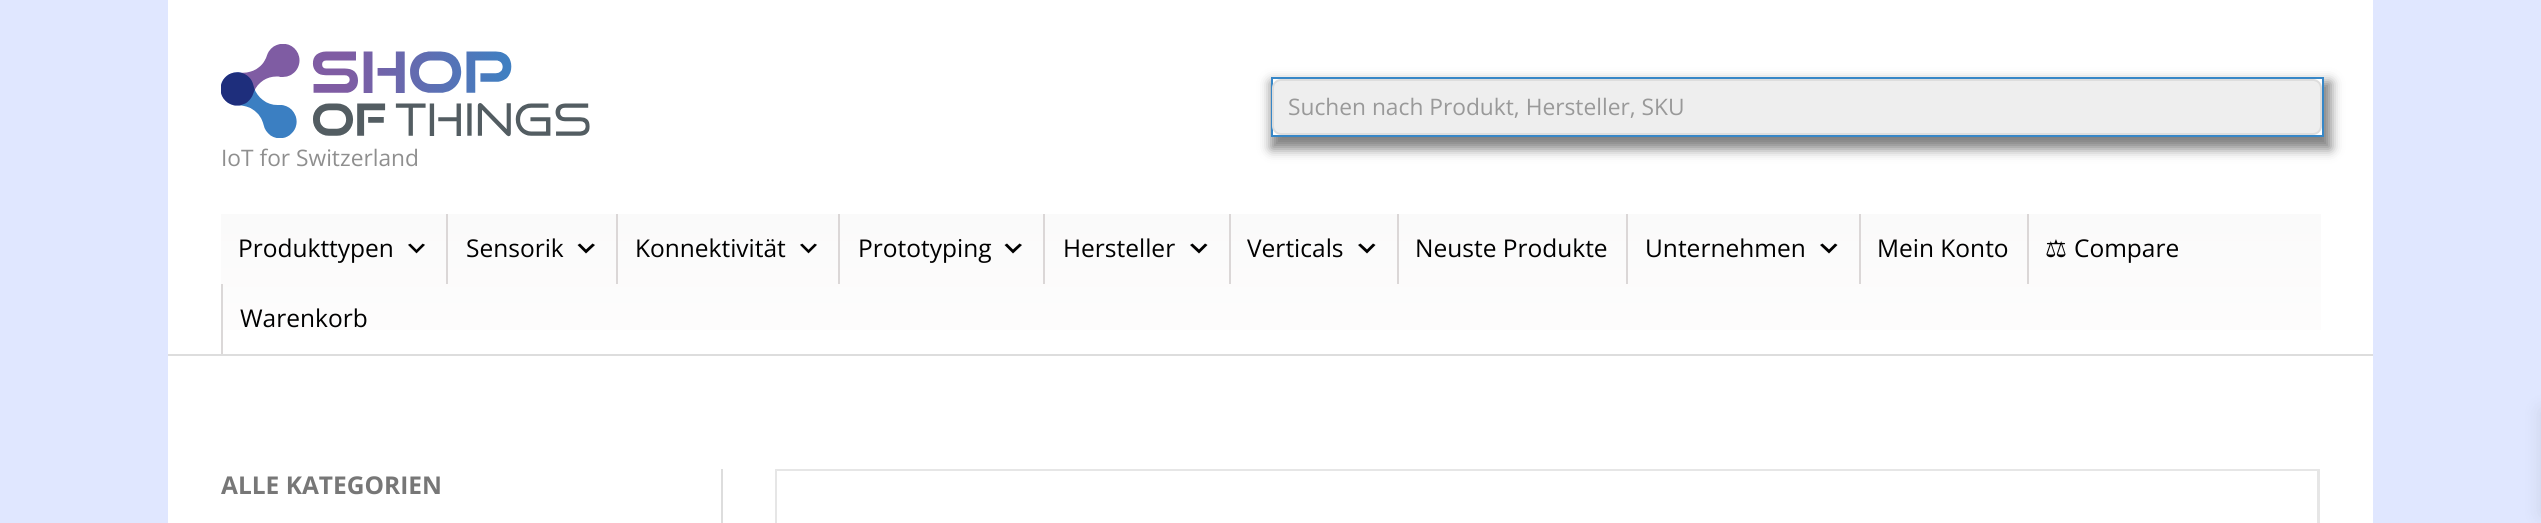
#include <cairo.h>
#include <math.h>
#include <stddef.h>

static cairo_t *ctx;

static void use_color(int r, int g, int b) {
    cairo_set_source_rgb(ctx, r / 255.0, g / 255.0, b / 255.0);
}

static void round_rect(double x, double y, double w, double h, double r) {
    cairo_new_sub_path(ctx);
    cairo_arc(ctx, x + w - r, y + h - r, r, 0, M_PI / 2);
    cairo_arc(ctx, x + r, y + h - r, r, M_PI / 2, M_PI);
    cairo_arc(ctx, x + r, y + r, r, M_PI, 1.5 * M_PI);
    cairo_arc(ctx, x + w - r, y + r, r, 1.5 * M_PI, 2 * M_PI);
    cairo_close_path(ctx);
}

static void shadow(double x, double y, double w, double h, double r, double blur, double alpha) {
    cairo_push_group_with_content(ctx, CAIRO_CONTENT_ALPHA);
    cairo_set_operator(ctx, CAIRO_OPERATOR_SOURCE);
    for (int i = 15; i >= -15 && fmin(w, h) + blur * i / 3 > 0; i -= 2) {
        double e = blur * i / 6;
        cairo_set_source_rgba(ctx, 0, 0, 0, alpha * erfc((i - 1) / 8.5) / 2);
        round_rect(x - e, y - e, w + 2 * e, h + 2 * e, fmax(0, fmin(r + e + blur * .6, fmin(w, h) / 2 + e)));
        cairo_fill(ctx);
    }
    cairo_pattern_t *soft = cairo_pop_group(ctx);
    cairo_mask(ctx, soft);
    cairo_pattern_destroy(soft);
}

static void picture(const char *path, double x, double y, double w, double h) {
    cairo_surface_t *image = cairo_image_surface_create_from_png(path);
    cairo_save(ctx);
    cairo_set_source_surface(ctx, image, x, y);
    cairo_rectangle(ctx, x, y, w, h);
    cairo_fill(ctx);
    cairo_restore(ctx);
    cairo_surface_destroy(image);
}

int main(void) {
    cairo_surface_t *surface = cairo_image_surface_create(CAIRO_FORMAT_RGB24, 2541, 523);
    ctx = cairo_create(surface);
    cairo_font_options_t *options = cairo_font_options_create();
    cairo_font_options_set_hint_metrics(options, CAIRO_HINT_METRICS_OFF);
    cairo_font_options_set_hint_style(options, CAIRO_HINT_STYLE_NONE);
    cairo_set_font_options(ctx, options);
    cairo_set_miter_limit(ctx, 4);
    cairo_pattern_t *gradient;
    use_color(224, 231, 255);
    cairo_paint(ctx);
    use_color(255, 255, 255);
    cairo_rectangle(ctx, 168, 0, 2205, 523);
    cairo_fill(ctx);
    cairo_save(ctx);
    cairo_set_fill_rule(ctx, CAIRO_FILL_RULE_EVEN_ODD);
    cairo_new_path(ctx);
    cairo_move_to(ctx, 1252, 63);
    cairo_line_to(ctx, 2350, 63);
    cairo_line_to(ctx, 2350, 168);
    cairo_line_to(ctx, 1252, 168);
    cairo_close_path(ctx);
    cairo_move_to(ctx, 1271, 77);
    cairo_line_to(ctx, 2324, 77);
    cairo_line_to(ctx, 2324, 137);
    cairo_line_to(ctx, 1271, 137);
    cairo_close_path(ctx);
    cairo_clip(ctx);
    use_color(0, 0, 0);
    shadow(1271, 82, 1060, 67, 0, 6, 0.5);
    cairo_restore(ctx);
    cairo_rectangle(ctx, 1272, 78, 1051, 58);
    use_color(55, 135, 199);
    cairo_stroke(ctx);
    use_color(238, 238, 238);
    round_rect(1273, 80, 1048, 54, 8);
    cairo_fill_preserve(ctx);
    use_color(221, 221, 221);
    cairo_stroke(ctx);
    cairo_select_font_face(ctx, "Open Sans", CAIRO_FONT_SLANT_NORMAL, CAIRO_FONT_WEIGHT_NORMAL);
    cairo_set_font_size(ctx, 22.75);
    use_color(153, 153, 153);
    cairo_move_to(ctx, 1288, 115);
    cairo_show_text(ctx, "Suchen nach Produkt, Hersteller, SKU");
    picture("img1.png", 221, 44, 369, 94);
    use_color(143, 143, 143);
    cairo_move_to(ctx, 221, 166);
    cairo_show_text(ctx, "IoT for Switzerland");
    use_color(221, 221, 221);
    cairo_rectangle(ctx, 168, 354, 2205, 2);
    cairo_fill(ctx);
    gradient = cairo_pattern_create_linear(1271, 213, 1271, 354);
    cairo_pattern_add_color_stop_rgba(gradient, 0, 0.98, 0.98, 0.98, 1);
    cairo_pattern_add_color_stop_rgba(gradient, 1, 0.996, 0.992, 0.992, 1);
    cairo_set_source(ctx, gradient);
    cairo_pattern_destroy(gradient);
    cairo_rectangle(ctx, 221, 214, 2100, 116);
    cairo_fill(ctx);
    cairo_set_font_size(ctx, 24.5);
    use_color(0, 0, 0);
    cairo_move_to(ctx, 238, 257);
    cairo_show_text(ctx, "Produkttypen");
    picture("img2.png", 408, 243, 17, 11);
    use_color(219, 215, 215);
    cairo_rectangle(ctx, 446, 214, 2, 70);
    cairo_fill(ctx);
    use_color(0, 0, 0);
    cairo_move_to(ctx, 466, 257);
    cairo_show_text(ctx, "Sensorik");
    cairo_new_path(ctx);
    cairo_move_to(ctx, 580, 243.5);
    cairo_line_to(ctx, 586, 249.5);
    cairo_line_to(ctx, 592.5, 243.5);
    cairo_line_to(ctx, 595, 245);
    cairo_line_to(ctx, 586, 253.5);
    cairo_line_to(ctx, 577.5, 245);
    cairo_close_path(ctx);
    cairo_fill(ctx);
    use_color(219, 215, 215);
    cairo_rectangle(ctx, 616, 214, 2, 70);
    cairo_fill(ctx);
    use_color(0, 0, 0);
    cairo_move_to(ctx, 635, 257);
    cairo_show_text(ctx, "Konnektivität");
    picture("img2.png", 800, 243, 17, 11);
    use_color(219, 215, 215);
    cairo_rectangle(ctx, 838, 214, 2, 70);
    cairo_fill(ctx);
    use_color(0, 0, 0);
    cairo_move_to(ctx, 858, 257);
    cairo_show_text(ctx, "Prototyping");
    cairo_new_path(ctx);
    cairo_move_to(ctx, 1007, 243.5);
    cairo_line_to(ctx, 1013, 249.5);
    cairo_line_to(ctx, 1019.5, 243.5);
    cairo_line_to(ctx, 1022, 245);
    cairo_line_to(ctx, 1013, 253.5);
    cairo_line_to(ctx, 1004.5, 245);
    cairo_close_path(ctx);
    cairo_fill(ctx);
    use_color(219, 215, 215);
    cairo_rectangle(ctx, 1043, 214, 2, 70);
    cairo_fill(ctx);
    use_color(0, 0, 0);
    cairo_move_to(ctx, 1063, 257);
    cairo_show_text(ctx, "Hersteller");
    cairo_new_path(ctx);
    cairo_move_to(ctx, 1192.5, 243.5);
    cairo_line_to(ctx, 1199, 249.5);
    cairo_line_to(ctx, 1205, 243.5);
    cairo_line_to(ctx, 1207.5, 245);
    cairo_line_to(ctx, 1199, 253.5);
    cairo_line_to(ctx, 1190, 245);
    cairo_close_path(ctx);
    cairo_fill(ctx);
    use_color(219, 215, 215);
    cairo_rectangle(ctx, 1229, 214, 2, 70);
    cairo_fill(ctx);
    use_color(0, 0, 0);
    cairo_move_to(ctx, 1247, 257);
    cairo_show_text(ctx, "Verticals");
    cairo_new_path(ctx);
    cairo_move_to(ctx, 1360.5, 243.5);
    cairo_line_to(ctx, 1367, 249.5);
    cairo_line_to(ctx, 1373, 243.5);
    cairo_line_to(ctx, 1375.5, 245);
    cairo_line_to(ctx, 1367, 253.5);
    cairo_line_to(ctx, 1358, 245);
    cairo_close_path(ctx);
    cairo_fill(ctx);
    use_color(219, 215, 215);
    cairo_rectangle(ctx, 1397, 214, 2, 70);
    cairo_fill(ctx);
    use_color(0, 0, 0);
    cairo_move_to(ctx, 1415, 257);
    cairo_show_text(ctx, "Neuste Produkte");
    use_color(219, 215, 215);
    cairo_rectangle(ctx, 1626, 214, 2, 70);
    cairo_fill(ctx);
    use_color(0, 0, 0);
    cairo_move_to(ctx, 1645, 257);
    cairo_show_text(ctx, "Unternehmen");
    cairo_new_path(ctx);
    cairo_move_to(ctx, 1822.5, 243.5);
    cairo_line_to(ctx, 1829, 249.5);
    cairo_line_to(ctx, 1835, 243.5);
    cairo_line_to(ctx, 1837.5, 245);
    cairo_line_to(ctx, 1829, 253.5);
    cairo_line_to(ctx, 1820, 245);
    cairo_close_path(ctx);
    cairo_fill(ctx);
    use_color(219, 215, 215);
    cairo_rectangle(ctx, 1859, 214, 2, 70);
    cairo_fill(ctx);
    use_color(0, 0, 0);
    cairo_move_to(ctx, 1877, 257);
    cairo_show_text(ctx, "Mein Konto");
    use_color(219, 215, 215);
    cairo_rectangle(ctx, 2027, 214, 2, 70);
    cairo_fill(ctx);
    cairo_select_font_face(ctx, "DejaVu Sans", CAIRO_FONT_SLANT_NORMAL, CAIRO_FONT_WEIGHT_NORMAL);
    use_color(0, 0, 0);
    cairo_move_to(ctx, 2045, 257);
    cairo_show_text(ctx, "⚖");
    cairo_select_font_face(ctx, "Open Sans", CAIRO_FONT_SLANT_NORMAL, CAIRO_FONT_WEIGHT_NORMAL);
    cairo_move_to(ctx, 2074, 257);
    cairo_show_text(ctx, "Compare");
    use_color(219, 216, 216);
    cairo_rectangle(ctx, 221, 284, 2, 70);
    cairo_fill(ctx);
    use_color(0, 0, 0);
    cairo_move_to(ctx, 240, 327);
    cairo_show_text(ctx, "Warenkorb");
    cairo_select_font_face(ctx, "Open Sans", CAIRO_FONT_SLANT_NORMAL, CAIRO_FONT_WEIGHT_BOLD);
    use_color(119, 119, 119);
    cairo_move_to(ctx, 221, 494);
    cairo_show_text(ctx, "ALLE KATEGORIEN");
    use_color(221, 221, 221);
    cairo_rectangle(ctx, 721, 469, 2, 54);
    cairo_fill(ctx);
    use_color(230, 230, 230);
    cairo_new_path(ctx);
    cairo_move_to(ctx, 775, 469);
    cairo_line_to(ctx, 2320, 469);
    cairo_line_to(ctx, 2317, 471);
    cairo_line_to(ctx, 777, 471);
    cairo_close_path(ctx);
    cairo_fill(ctx);
    cairo_set_source_rgba(ctx, 0, 0, 0, 0.1);
    cairo_new_path(ctx);
    cairo_move_to(ctx, 2320, 469);
    cairo_line_to(ctx, 2320, 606);
    cairo_line_to(ctx, 2317, 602);
    cairo_line_to(ctx, 2317, 471);
    cairo_close_path(ctx);
    cairo_fill(ctx);
    cairo_new_path(ctx);
    cairo_move_to(ctx, 775, 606);
    cairo_line_to(ctx, 775, 469);
    cairo_line_to(ctx, 777, 471);
    cairo_line_to(ctx, 777, 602);
    cairo_close_path(ctx);
    cairo_fill(ctx);
    use_color(0, 0, 0);
    shadow(2541, 410, 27, 105, 0, 9, 0.1);
    cairo_surface_write_to_png(surface, "result.png");
    cairo_font_options_destroy(options);
    cairo_destroy(ctx);
    cairo_surface_destroy(surface);
    return 0;
}
